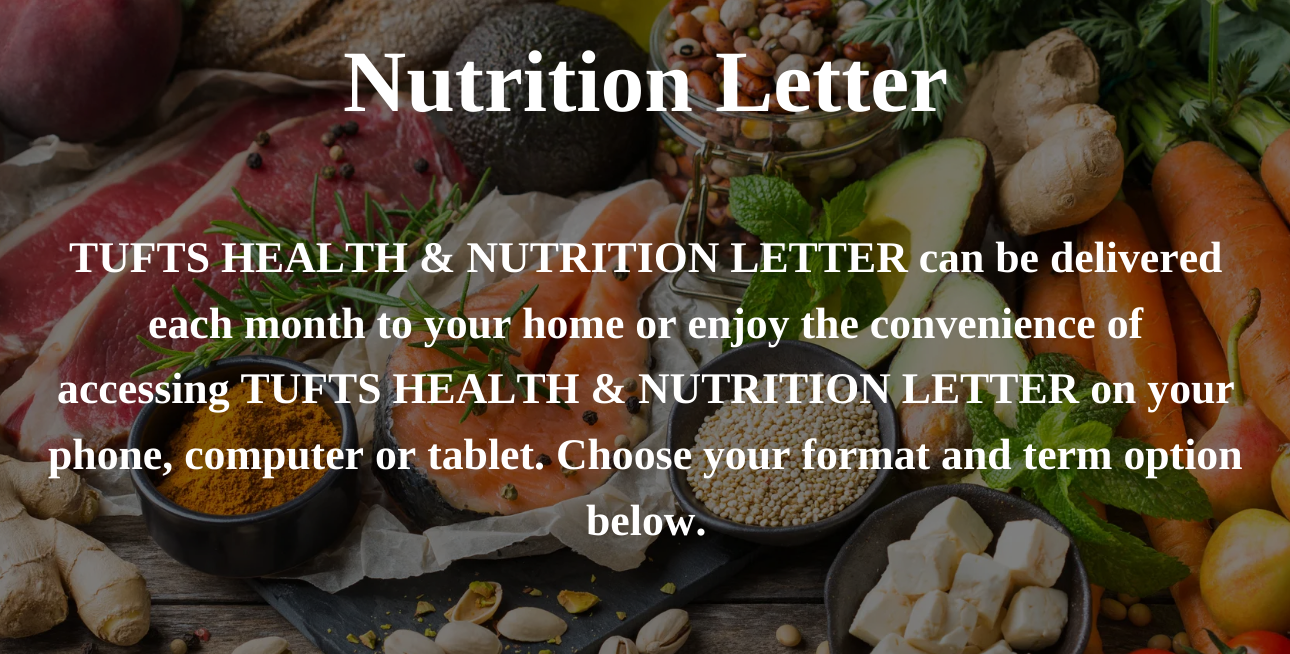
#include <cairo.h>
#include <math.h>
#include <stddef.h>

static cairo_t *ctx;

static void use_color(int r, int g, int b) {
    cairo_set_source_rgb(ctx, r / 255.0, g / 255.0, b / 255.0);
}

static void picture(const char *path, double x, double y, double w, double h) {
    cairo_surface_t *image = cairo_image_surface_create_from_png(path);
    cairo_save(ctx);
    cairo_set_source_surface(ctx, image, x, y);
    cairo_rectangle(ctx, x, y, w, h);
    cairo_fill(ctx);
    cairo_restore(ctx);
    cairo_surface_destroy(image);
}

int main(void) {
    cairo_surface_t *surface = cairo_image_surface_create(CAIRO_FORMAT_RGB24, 1290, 654);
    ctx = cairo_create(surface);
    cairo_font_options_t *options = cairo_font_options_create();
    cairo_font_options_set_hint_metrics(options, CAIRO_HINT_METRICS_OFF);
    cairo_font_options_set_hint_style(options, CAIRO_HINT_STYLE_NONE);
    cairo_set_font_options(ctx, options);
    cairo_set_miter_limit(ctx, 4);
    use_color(255, 255, 255);
    cairo_paint(ctx);
    picture("img1.png", 0, 0, 1290, 654);
    cairo_select_font_face(ctx, "Liberation Serif", CAIRO_FONT_SLANT_NORMAL, CAIRO_FONT_WEIGHT_BOLD);
    cairo_set_font_size(ctx, 87.5);
    use_color(255, 255, 255);
    cairo_move_to(ctx, 343, 111);
    cairo_show_text(ctx, "Nutrition Letter");
    cairo_set_font_size(ctx, 43.75);
    cairo_move_to(ctx, 69, 272);
    cairo_show_text(ctx, "TUFTS HEALTH & NUTRITION LETTER can be delivered");
    cairo_move_to(ctx, 148, 338);
    cairo_show_text(ctx, "each month to your home or enjoy the convenience of");
    cairo_move_to(ctx, 57, 403);
    cairo_show_text(ctx, "accessing TUFTS HEALTH & NUTRITION LETTER on your");
    cairo_move_to(ctx, 48, 469);
    cairo_show_text(ctx, "phone, computer or tablet. Choose your format and term option");
    cairo_move_to(ctx, 586, 535);
    cairo_show_text(ctx, "below.");
    cairo_surface_write_to_png(surface, "result.png");
    cairo_font_options_destroy(options);
    cairo_destroy(ctx);
    cairo_surface_destroy(surface);
    return 0;
}
